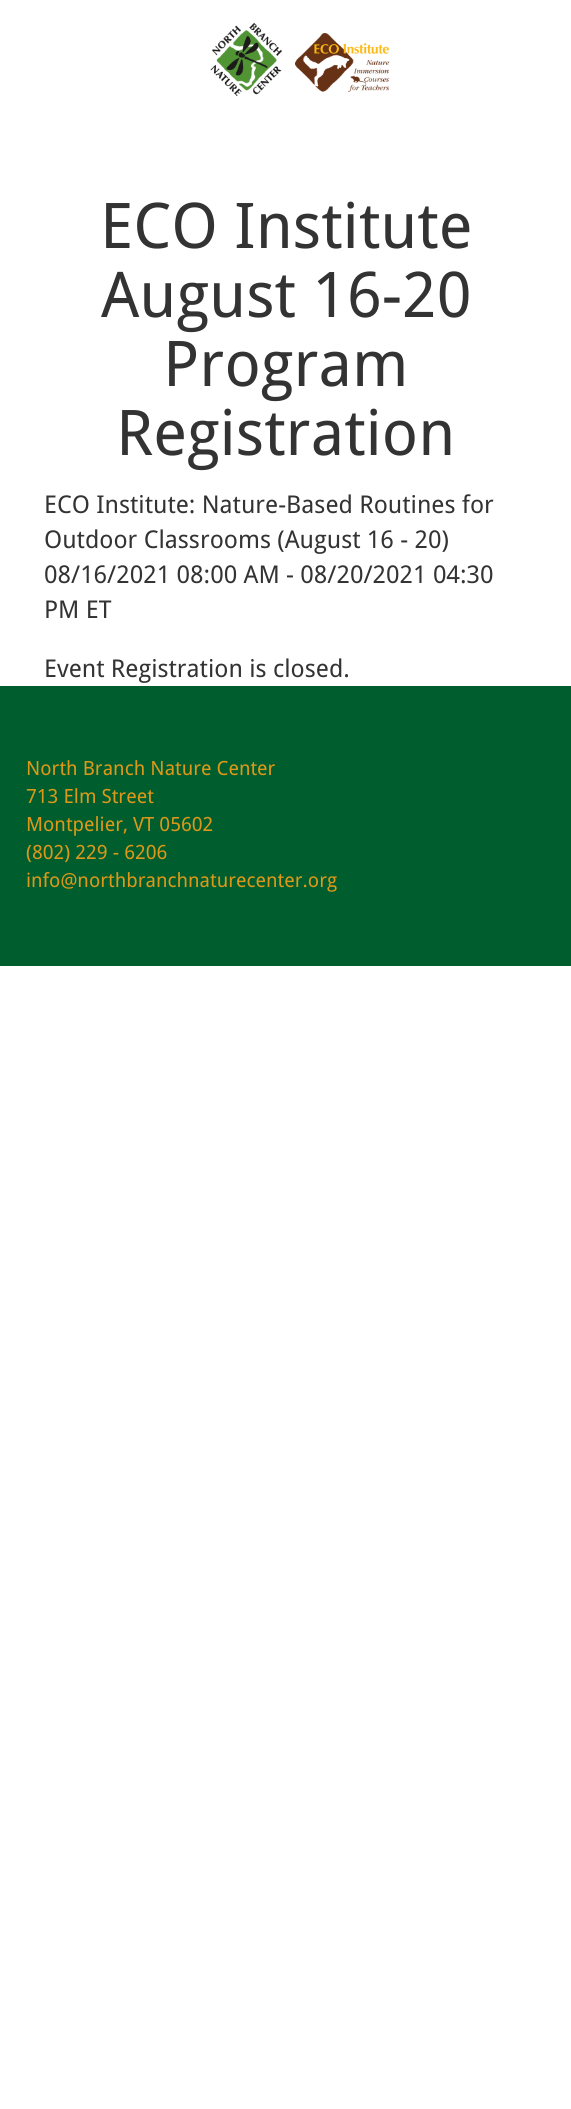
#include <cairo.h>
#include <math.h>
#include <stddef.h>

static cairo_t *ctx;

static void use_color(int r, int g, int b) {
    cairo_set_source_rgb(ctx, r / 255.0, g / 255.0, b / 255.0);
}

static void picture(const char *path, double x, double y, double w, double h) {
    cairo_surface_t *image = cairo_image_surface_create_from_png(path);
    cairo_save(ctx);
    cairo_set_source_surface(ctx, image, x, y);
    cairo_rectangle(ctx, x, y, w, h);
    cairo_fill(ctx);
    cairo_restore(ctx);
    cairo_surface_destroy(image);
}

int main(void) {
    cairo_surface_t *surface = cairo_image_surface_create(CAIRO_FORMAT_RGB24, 571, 2109);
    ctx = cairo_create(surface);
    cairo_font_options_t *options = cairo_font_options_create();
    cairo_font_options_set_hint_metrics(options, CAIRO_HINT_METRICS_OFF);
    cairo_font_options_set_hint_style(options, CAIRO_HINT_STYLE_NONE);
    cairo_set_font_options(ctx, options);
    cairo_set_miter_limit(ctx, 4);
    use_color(255, 255, 255);
    cairo_paint(ctx);
    picture("img1.png", 210, 22, 180, 74);
    cairo_select_font_face(ctx, "Droid Sans", CAIRO_FONT_SLANT_NORMAL, CAIRO_FONT_WEIGHT_NORMAL);
    cairo_set_font_size(ctx, 63);
    use_color(51, 51, 51);
    cairo_move_to(ctx, 100, 248);
    cairo_show_text(ctx, "ECO Institute");
    cairo_move_to(ctx, 101, 317);
    cairo_show_text(ctx, "August 16-20");
    cairo_move_to(ctx, 163, 386);
    cairo_show_text(ctx, "Program");
    cairo_move_to(ctx, 116, 455);
    cairo_show_text(ctx, "Registration");
    cairo_set_font_size(ctx, 24.5);
    cairo_move_to(ctx, 44, 513);
    cairo_show_text(ctx, "ECO Institute: Nature-Based Routines for");
    cairo_move_to(ctx, 44, 548);
    cairo_show_text(ctx, "Outdoor Classrooms (August 16 - 20)");
    cairo_move_to(ctx, 44, 583);
    cairo_show_text(ctx, "08/16/2021 08:00 AM - 08/20/2021 04:30");
    cairo_move_to(ctx, 44, 618);
    cairo_show_text(ctx, "PM ET");
    cairo_move_to(ctx, 44, 677);
    cairo_show_text(ctx, "Event Registration is closed.");
    use_color(0, 94, 46);
    cairo_rectangle(ctx, 0, 686, 571, 280);
    cairo_fill(ctx);
    cairo_set_font_size(ctx, 19.6);
    use_color(221, 151, 25);
    cairo_move_to(ctx, 26, 775);
    cairo_show_text(ctx, "North Branch Nature Center");
    cairo_move_to(ctx, 26, 803);
    cairo_show_text(ctx, "713 Elm Street");
    cairo_move_to(ctx, 26, 831);
    cairo_show_text(ctx, "Montpelier, VT 05602");
    cairo_move_to(ctx, 26, 859);
    cairo_show_text(ctx, "(802) 229 - 6206");
    cairo_move_to(ctx, 26, 887);
    cairo_show_text(ctx, "info@northbranchnaturecenter.org");
    cairo_surface_write_to_png(surface, "result.png");
    cairo_font_options_destroy(options);
    cairo_destroy(ctx);
    cairo_surface_destroy(surface);
    return 0;
}
